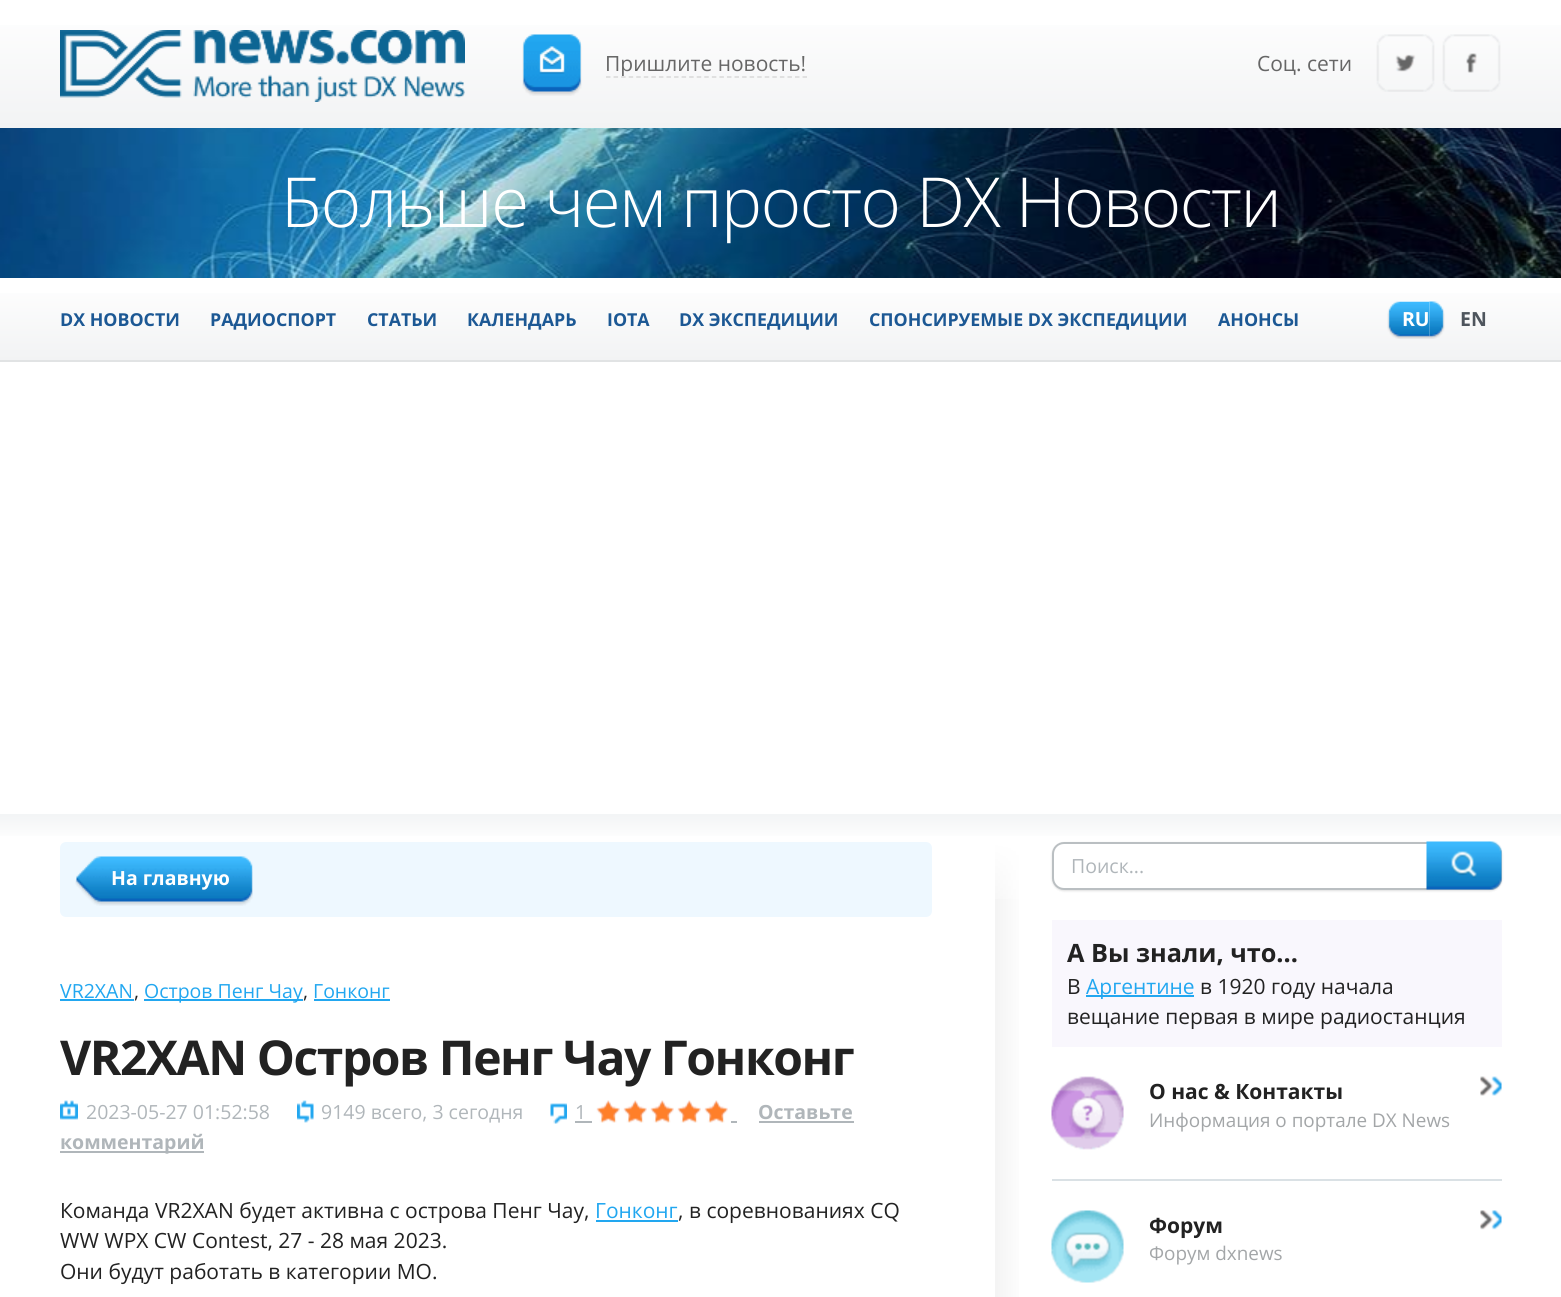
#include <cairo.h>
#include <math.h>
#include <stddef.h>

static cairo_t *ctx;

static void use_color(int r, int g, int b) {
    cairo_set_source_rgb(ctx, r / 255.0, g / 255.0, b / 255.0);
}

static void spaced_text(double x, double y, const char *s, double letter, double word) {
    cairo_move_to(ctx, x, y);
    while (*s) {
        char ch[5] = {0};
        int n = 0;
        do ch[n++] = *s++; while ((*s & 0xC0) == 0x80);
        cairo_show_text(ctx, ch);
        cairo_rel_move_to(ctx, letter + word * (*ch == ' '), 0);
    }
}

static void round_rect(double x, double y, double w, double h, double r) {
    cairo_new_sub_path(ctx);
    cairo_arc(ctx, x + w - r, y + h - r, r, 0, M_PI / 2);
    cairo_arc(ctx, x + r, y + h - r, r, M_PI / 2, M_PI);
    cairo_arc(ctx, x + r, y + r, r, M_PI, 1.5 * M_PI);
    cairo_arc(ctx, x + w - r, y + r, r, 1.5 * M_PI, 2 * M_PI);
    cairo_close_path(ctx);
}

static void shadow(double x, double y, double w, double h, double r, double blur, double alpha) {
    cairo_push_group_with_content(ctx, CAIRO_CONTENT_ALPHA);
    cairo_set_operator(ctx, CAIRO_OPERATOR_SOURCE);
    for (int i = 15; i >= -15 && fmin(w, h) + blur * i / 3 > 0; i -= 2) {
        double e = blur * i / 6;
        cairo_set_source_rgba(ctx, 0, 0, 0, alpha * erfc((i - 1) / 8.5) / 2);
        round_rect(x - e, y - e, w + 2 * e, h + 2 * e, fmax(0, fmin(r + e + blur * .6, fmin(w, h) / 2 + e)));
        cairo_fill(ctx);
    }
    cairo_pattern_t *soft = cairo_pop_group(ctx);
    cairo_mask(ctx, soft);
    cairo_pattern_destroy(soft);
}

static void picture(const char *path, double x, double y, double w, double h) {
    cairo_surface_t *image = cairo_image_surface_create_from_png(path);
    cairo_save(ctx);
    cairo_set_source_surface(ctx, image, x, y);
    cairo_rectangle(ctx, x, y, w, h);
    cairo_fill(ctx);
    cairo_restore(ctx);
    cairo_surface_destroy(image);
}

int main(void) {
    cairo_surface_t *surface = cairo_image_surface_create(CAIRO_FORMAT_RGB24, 1561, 1297);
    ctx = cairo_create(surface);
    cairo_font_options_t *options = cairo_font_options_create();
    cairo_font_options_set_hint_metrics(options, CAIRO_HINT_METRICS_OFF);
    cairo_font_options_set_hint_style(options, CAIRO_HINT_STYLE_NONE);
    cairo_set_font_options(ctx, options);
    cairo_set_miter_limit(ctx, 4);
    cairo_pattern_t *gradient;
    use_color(255, 255, 255);
    cairo_paint(ctx);
    gradient = cairo_pattern_create_linear(781, 0, 781, 128);
    cairo_pattern_add_color_stop_rgba(gradient, 0, 1, 1, 1, 1);
    cairo_pattern_add_color_stop_rgba(gradient, 1, 0.949, 0.953, 0.957, 1);
    cairo_set_source(ctx, gradient);
    cairo_pattern_destroy(gradient);
    cairo_rectangle(ctx, 0, 25, 1561, 103);
    cairo_fill(ctx);
    picture("img1.png", 60, 30, 405, 72);
    picture("img2.png", 522, 34, 60, 62);
    cairo_select_font_face(ctx, "Open Sans", CAIRO_FONT_SLANT_NORMAL, CAIRO_FONT_WEIGHT_NORMAL);
    cairo_set_font_size(ctx, 21);
    use_color(102, 102, 102);
    cairo_move_to(ctx, 605, 71);
    cairo_show_text(ctx, "Пришлите новость!");
    cairo_new_path(ctx);
    cairo_move_to(ctx, 606, 77);
    cairo_line_to(ctx, 807, 77);
    use_color(216, 217, 217);
    cairo_set_line_width(ctx, 1.5);
    cairo_set_dash(ctx, (double[]){4.5, 3.06}, 2, 0);
    cairo_stroke(ctx);
    use_color(102, 102, 102);
    cairo_move_to(ctx, 1257, 71);
    cairo_show_text(ctx, "Соц. сети");
    picture("img3.png", 1376, 34, 59, 58);
    picture("img4.png", 1442, 34, 59, 58);
    picture("img5.png", 0, 128, 1561, 150);
    cairo_select_font_face(ctx, "Open Sans Light", CAIRO_FONT_SLANT_NORMAL, CAIRO_FONT_WEIGHT_NORMAL);
    cairo_set_font_size(ctx, 69);
    use_color(255, 255, 255);
    spaced_text(281, 227, "Больше чем просто DX Новости", -1.4, 0);
    gradient = cairo_pattern_create_linear(781, 277, 781, 360);
    cairo_pattern_add_color_stop_rgba(gradient, 0, 1, 1, 1, 1);
    cairo_pattern_add_color_stop_rgba(gradient, 1, 0.949, 0.953, 0.957, 1);
    cairo_set_source(ctx, gradient);
    cairo_pattern_destroy(gradient);
    cairo_rectangle(ctx, 0, 293, 1561, 67);
    cairo_fill(ctx);
    use_color(225, 227, 228);
    cairo_rectangle(ctx, 0, 360, 1561, 2);
    cairo_fill(ctx);
    cairo_select_font_face(ctx, "Open Sans", CAIRO_FONT_SLANT_NORMAL, CAIRO_FONT_WEIGHT_BOLD);
    cairo_set_font_size(ctx, 17.8);
    use_color(28, 88, 148);
    cairo_move_to(ctx, 60, 326);
    cairo_show_text(ctx, "DX НОВОСТИ");
    cairo_move_to(ctx, 210, 326);
    cairo_show_text(ctx, "РАДИОСПОРТ");
    cairo_move_to(ctx, 367, 326);
    cairo_show_text(ctx, "СТАТЬИ");
    cairo_move_to(ctx, 467, 326);
    cairo_show_text(ctx, "КАЛЕНДАРЬ");
    cairo_move_to(ctx, 607, 326);
    cairo_show_text(ctx, "IOTA");
    cairo_move_to(ctx, 679, 326);
    cairo_show_text(ctx, "DX ЭКСПЕДИЦИИ");
    cairo_move_to(ctx, 869, 326);
    cairo_show_text(ctx, "СПОНСИРУЕМЫЕ DX ЭКСПЕДИЦИИ");
    cairo_move_to(ctx, 1218, 326);
    cairo_show_text(ctx, "АНОНСЫ");
    picture("img6.png", 1387, 301, 43, 38);
    cairo_set_font_size(ctx, 19.5);
    use_color(255, 255, 255);
    cairo_move_to(ctx, 1402, 326);
    cairo_show_text(ctx, "RU");
    picture("img7.png", 1429, 301, 16, 38);
    use_color(78, 85, 93);
    cairo_move_to(ctx, 1460, 326);
    cairo_show_text(ctx, "EN");
    gradient = cairo_pattern_create_linear(781, 813, 781, 842);
    cairo_pattern_add_color_stop_rgba(gradient, 0, 0.949, 0.957, 0.961, 1);
    cairo_pattern_add_color_stop_rgba(gradient, 1, 1, 1, 1, 1);
    cairo_set_source(ctx, gradient);
    cairo_pattern_destroy(gradient);
    cairo_rectangle(ctx, 0, 814, 1561, 22);
    cairo_fill(ctx);
    gradient = cairo_pattern_create_linear(994, 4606, 1025, 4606);
    cairo_pattern_add_color_stop_rgba(gradient, 0, 0.953, 0.953, 0.953, 1);
    cairo_pattern_add_color_stop_rgba(gradient, 1, 1, 1, 1, 1);
    cairo_set_source(ctx, gradient);
    cairo_pattern_destroy(gradient);
    cairo_rectangle(ctx, 995, 842, 24, 455);
    cairo_fill(ctx);
    gradient = cairo_pattern_create_linear(1010, 842, 1010, 917);
    cairo_pattern_add_color_stop_rgba(gradient, 0, 1, 1, 1, 1);
    cairo_pattern_add_color_stop_rgba(gradient, 1, 1, 1, 1, 0);
    cairo_set_source(ctx, gradient);
    cairo_pattern_destroy(gradient);
    cairo_rectangle(ctx, 995, 842, 24, 57);
    cairo_fill(ctx);
    use_color(238, 248, 255);
    round_rect(60, 842, 872, 75, 6);
    cairo_fill(ctx);
    picture("img8.png", 75, 856, 36, 50);
    picture("img9.png", 111, 856, 142, 50);
    use_color(255, 255, 255);
    cairo_move_to(ctx, 111, 885);
    cairo_show_text(ctx, "На главную");
    cairo_select_font_face(ctx, "Open Sans", CAIRO_FONT_SLANT_NORMAL, CAIRO_FONT_WEIGHT_NORMAL);
    use_color(34, 167, 240);
    cairo_move_to(ctx, 60, 998);
    cairo_show_text(ctx, "VR2XAN");
    cairo_rectangle(ctx, 60, 999, 74, 2);
    cairo_fill(ctx);
    use_color(34, 34, 34);
    cairo_move_to(ctx, 134, 998);
    cairo_show_text(ctx, ",");
    use_color(34, 167, 240);
    cairo_rectangle(ctx, 144, 999, 159, 2);
    cairo_fill(ctx);
    cairo_move_to(ctx, 144, 998);
    cairo_show_text(ctx, "Остров Пенг Чау");
    use_color(34, 34, 34);
    cairo_move_to(ctx, 303, 998);
    cairo_show_text(ctx, ",");
    use_color(34, 167, 240);
    cairo_rectangle(ctx, 314, 999, 76, 2);
    cairo_fill(ctx);
    cairo_move_to(ctx, 313, 998);
    cairo_show_text(ctx, "Гонконг");
    cairo_select_font_face(ctx, "Open Sans", CAIRO_FONT_SLANT_NORMAL, CAIRO_FONT_WEIGHT_BOLD);
    cairo_set_font_size(ctx, 48);
    use_color(34, 34, 34);
    spaced_text(60, 1075, "VR2XAN Остров Пенг Чау Гонконг", -1.45, 0);
    picture("img10.png", 60, 1100, 18, 20);
    cairo_select_font_face(ctx, "Open Sans", CAIRO_FONT_SLANT_NORMAL, CAIRO_FONT_WEIGHT_NORMAL);
    cairo_set_font_size(ctx, 19.5);
    use_color(176, 182, 186);
    cairo_move_to(ctx, 86, 1119);
    cairo_show_text(ctx, "2023-05-27 01:52:58");
    picture("img11.png", 297, 1100, 17, 23);
    cairo_move_to(ctx, 321, 1119);
    cairo_show_text(ctx, "9149 всего, 3 сегодня");
    picture("img12.png", 550, 1103, 17, 21);
    cairo_move_to(ctx, 575, 1119);
    cairo_show_text(ctx, "1");
    cairo_rectangle(ctx, 575, 1121, 17, 2);
    cairo_fill(ctx);
    picture("img13.png", 596, 1100, 132, 23);
    cairo_rectangle(ctx, 731, 1121, 6, 2);
    cairo_fill(ctx);
    cairo_select_font_face(ctx, "Open Sans", CAIRO_FONT_SLANT_NORMAL, CAIRO_FONT_WEIGHT_BOLD);
    cairo_move_to(ctx, 758, 1119);
    cairo_show_text(ctx, "Оставьте");
    cairo_rectangle(ctx, 759, 1121, 95, 2);
    cairo_fill(ctx);
    cairo_rectangle(ctx, 60, 1151, 144, 2);
    cairo_fill(ctx);
    cairo_move_to(ctx, 60, 1149);
    cairo_show_text(ctx, "комментарий");
    cairo_select_font_face(ctx, "Open Sans", CAIRO_FONT_SLANT_NORMAL, CAIRO_FONT_WEIGHT_NORMAL);
    cairo_set_font_size(ctx, 21);
    use_color(34, 34, 34);
    cairo_move_to(ctx, 60, 1218);
    cairo_show_text(ctx, "Команда VR2XAN будет активна с острова Пенг Чау,");
    use_color(34, 167, 240);
    cairo_move_to(ctx, 595, 1218);
    cairo_show_text(ctx, "Гонконг");
    cairo_rectangle(ctx, 596, 1220, 82, 2);
    cairo_fill(ctx);
    use_color(34, 34, 34);
    cairo_move_to(ctx, 678, 1218);
    cairo_show_text(ctx, ", в соревнованиях CQ");
    cairo_move_to(ctx, 60, 1248);
    cairo_show_text(ctx, "WW WPX CW Contest, 27 - 28 мая 2023.");
    cairo_move_to(ctx, 60, 1279);
    cairo_show_text(ctx, "Они будут работать в категории MO.");
    use_color(0, 0, 0);
    shadow(1052, 843, 450, 48, 12, 1, 0.13);
    use_color(255, 255, 255);
    round_rect(1053, 843, 448, 46, 11);
    cairo_fill_preserve(ctx);
    use_color(186, 191, 194);
    cairo_set_line_width(ctx, 2);
    cairo_set_dash(ctx, NULL, 0, 0);
    cairo_stroke(ctx);
    cairo_set_font_size(ctx, 19.5);
    use_color(176, 182, 186);
    cairo_move_to(ctx, 1071, 873);
    cairo_show_text(ctx, "Поиск...");
    picture("img14.png", 1426, 841, 76, 49);
    use_color(249, 247, 253);
    cairo_rectangle(ctx, 1052, 920, 450, 127);
    cairo_fill(ctx);
    cairo_select_font_face(ctx, "Open Sans", CAIRO_FONT_SLANT_NORMAL, CAIRO_FONT_WEIGHT_BOLD);
    cairo_set_font_size(ctx, 25.25);
    use_color(34, 34, 34);
    cairo_move_to(ctx, 1067, 962);
    cairo_show_text(ctx, "А Вы знали, что...");
    cairo_select_font_face(ctx, "Open Sans", CAIRO_FONT_SLANT_NORMAL, CAIRO_FONT_WEIGHT_NORMAL);
    cairo_set_font_size(ctx, 21);
    cairo_move_to(ctx, 1067, 994);
    cairo_show_text(ctx, "В");
    use_color(34, 167, 240);
    cairo_rectangle(ctx, 1086, 995, 108, 2);
    cairo_fill(ctx);
    cairo_move_to(ctx, 1086, 994);
    cairo_show_text(ctx, "Аргентине");
    use_color(34, 34, 34);
    cairo_move_to(ctx, 1200, 994);
    cairo_show_text(ctx, "в 1920 году начала");
    cairo_move_to(ctx, 1067, 1024);
    cairo_show_text(ctx, "вещание первая в мире радиостанция");
    picture("img15.png", 1051, 1076, 73, 74);
    cairo_select_font_face(ctx, "Open Sans", CAIRO_FONT_SLANT_NORMAL, CAIRO_FONT_WEIGHT_BOLD);
    cairo_move_to(ctx, 1149, 1099);
    cairo_show_text(ctx, "О нас & Контакты");
    picture("img16.png", 1480, 1076, 22, 20);
    cairo_select_font_face(ctx, "Open Sans", CAIRO_FONT_SLANT_NORMAL, CAIRO_FONT_WEIGHT_NORMAL);
    cairo_set_font_size(ctx, 18.9);
    use_color(163, 166, 168);
    cairo_move_to(ctx, 1149, 1127);
    cairo_show_text(ctx, "Информация о портале DX News");
    use_color(218, 225, 229);
    cairo_rectangle(ctx, 1052, 1179, 450, 2);
    cairo_fill(ctx);
    picture("img17.png", 1051, 1210, 73, 73);
    cairo_select_font_face(ctx, "Open Sans", CAIRO_FONT_SLANT_NORMAL, CAIRO_FONT_WEIGHT_BOLD);
    cairo_set_font_size(ctx, 21);
    use_color(34, 34, 34);
    cairo_move_to(ctx, 1149, 1233);
    cairo_show_text(ctx, "Форум");
    picture("img18.png", 1480, 1210, 22, 20);
    cairo_select_font_face(ctx, "Open Sans", CAIRO_FONT_SLANT_NORMAL, CAIRO_FONT_WEIGHT_NORMAL);
    cairo_set_font_size(ctx, 18.9);
    use_color(163, 166, 168);
    cairo_move_to(ctx, 1149, 1260);
    cairo_show_text(ctx, "Форум dxnews");
    cairo_surface_write_to_png(surface, "result.png");
    cairo_font_options_destroy(options);
    cairo_destroy(ctx);
    cairo_surface_destroy(surface);
    return 0;
}
